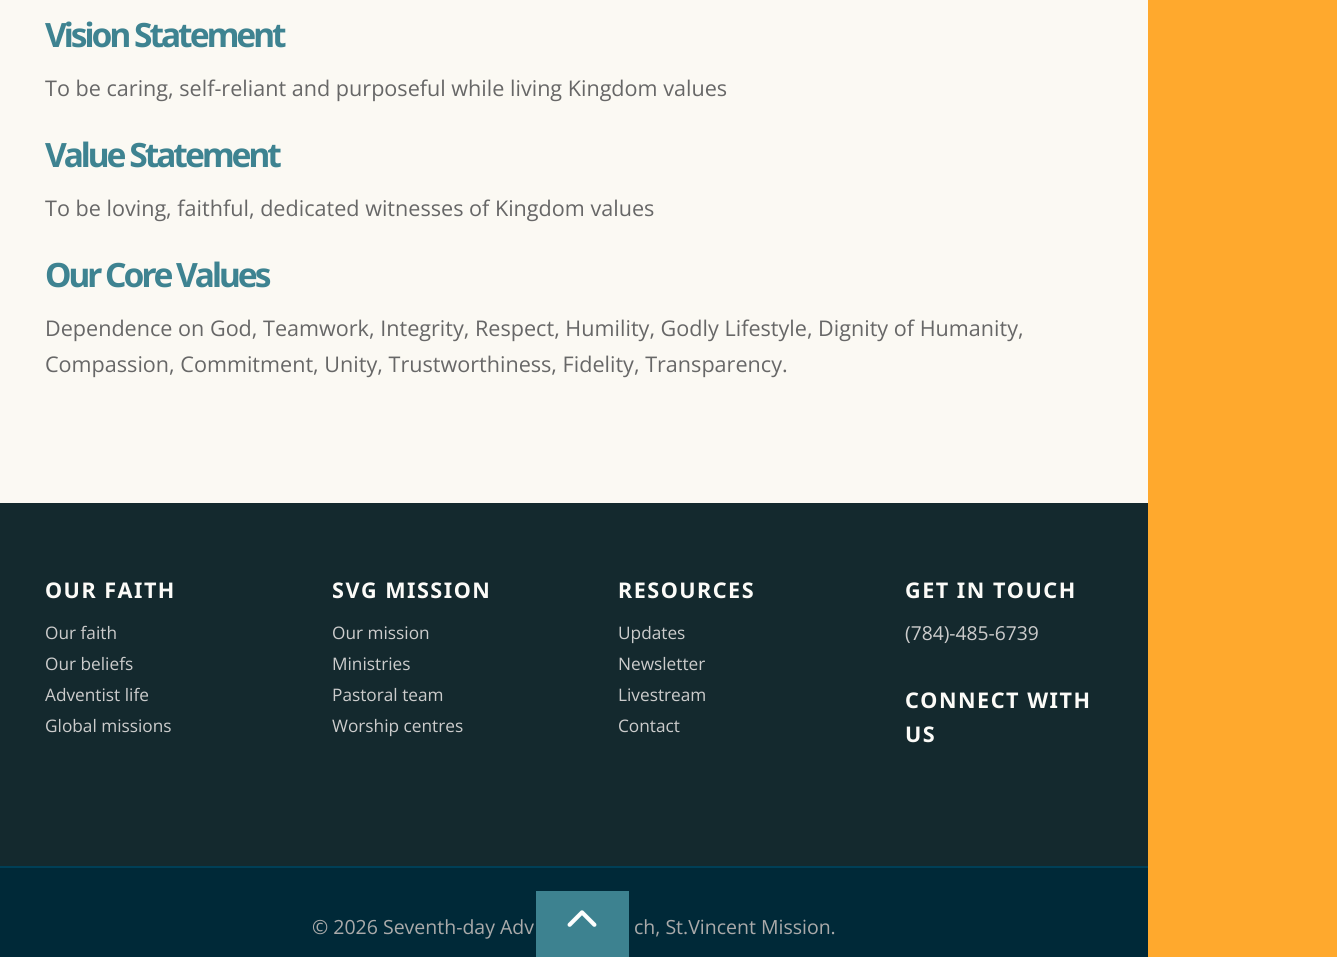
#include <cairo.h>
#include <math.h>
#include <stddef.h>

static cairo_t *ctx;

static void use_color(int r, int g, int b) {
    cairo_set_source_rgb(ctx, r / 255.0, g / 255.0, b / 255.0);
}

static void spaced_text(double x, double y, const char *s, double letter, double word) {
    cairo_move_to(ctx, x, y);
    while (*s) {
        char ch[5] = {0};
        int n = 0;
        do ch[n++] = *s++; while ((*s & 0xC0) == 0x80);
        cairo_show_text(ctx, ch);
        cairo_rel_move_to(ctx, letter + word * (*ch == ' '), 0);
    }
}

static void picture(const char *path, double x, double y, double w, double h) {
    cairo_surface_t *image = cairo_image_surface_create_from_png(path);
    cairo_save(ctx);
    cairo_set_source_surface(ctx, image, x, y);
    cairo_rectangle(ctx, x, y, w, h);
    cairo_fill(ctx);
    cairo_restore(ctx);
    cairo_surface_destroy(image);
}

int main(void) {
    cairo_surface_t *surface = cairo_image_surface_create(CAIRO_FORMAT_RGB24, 1337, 957);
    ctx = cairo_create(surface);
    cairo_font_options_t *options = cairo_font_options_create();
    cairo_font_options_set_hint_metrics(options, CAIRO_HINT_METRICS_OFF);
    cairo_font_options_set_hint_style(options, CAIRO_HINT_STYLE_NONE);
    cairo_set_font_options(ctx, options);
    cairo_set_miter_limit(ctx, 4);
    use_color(251, 249, 243);
    cairo_paint(ctx);
    cairo_select_font_face(ctx, "Noto Sans", CAIRO_FONT_SLANT_NORMAL, CAIRO_FONT_WEIGHT_BOLD);
    cairo_set_font_size(ctx, 33.5);
    use_color(62, 131, 145);
    spaced_text(45, 47, "Vision Statement", -3, 0);
    cairo_select_font_face(ctx, "Open Sans", CAIRO_FONT_SLANT_NORMAL, CAIRO_FONT_WEIGHT_NORMAL);
    cairo_set_font_size(ctx, 21.6);
    use_color(103, 103, 103);
    cairo_move_to(ctx, 45, 96);
    cairo_show_text(ctx, "To be caring, self-reliant and purposeful while living Kingdom values");
    cairo_select_font_face(ctx, "Noto Sans", CAIRO_FONT_SLANT_NORMAL, CAIRO_FONT_WEIGHT_BOLD);
    cairo_set_font_size(ctx, 33.5);
    use_color(62, 131, 145);
    spaced_text(45, 167, "Value Statement", -3, 0);
    cairo_select_font_face(ctx, "Open Sans", CAIRO_FONT_SLANT_NORMAL, CAIRO_FONT_WEIGHT_NORMAL);
    cairo_set_font_size(ctx, 21.6);
    use_color(103, 103, 103);
    cairo_move_to(ctx, 45, 216);
    cairo_show_text(ctx, "To be loving, faithful, dedicated witnesses of Kingdom values");
    cairo_select_font_face(ctx, "Noto Sans", CAIRO_FONT_SLANT_NORMAL, CAIRO_FONT_WEIGHT_BOLD);
    cairo_set_font_size(ctx, 33.5);
    use_color(62, 131, 145);
    spaced_text(45, 287, "Our Core Values", -3, 0);
    cairo_select_font_face(ctx, "Open Sans", CAIRO_FONT_SLANT_NORMAL, CAIRO_FONT_WEIGHT_NORMAL);
    cairo_set_font_size(ctx, 21.6);
    use_color(103, 103, 103);
    cairo_move_to(ctx, 45, 336);
    cairo_show_text(ctx, "Dependence on God, Teamwork, Integrity, Respect, Humility, Godly Lifestyle, Dignity of Humanity,");
    cairo_move_to(ctx, 45, 372);
    cairo_show_text(ctx, "Compassion, Commitment, Unity, Trustworthiness, Fidelity, Transparency.");
    use_color(20, 41, 46);
    cairo_rectangle(ctx, 0, 503, 1148, 363);
    cairo_fill(ctx);
    cairo_select_font_face(ctx, "Noto Sans", CAIRO_FONT_SLANT_NORMAL, CAIRO_FONT_WEIGHT_BOLD);
    use_color(252, 251, 248);
    spaced_text(45, 598, "OUR FAITH", 1.5, 0);
    cairo_select_font_face(ctx, "Open Sans", CAIRO_FONT_SLANT_NORMAL, CAIRO_FONT_WEIGHT_NORMAL);
    cairo_set_font_size(ctx, 17.25);
    use_color(204, 204, 204);
    cairo_move_to(ctx, 45, 639);
    cairo_show_text(ctx, "Our faith");
    cairo_move_to(ctx, 45, 670);
    cairo_show_text(ctx, "Our beliefs");
    cairo_move_to(ctx, 45, 701);
    cairo_show_text(ctx, "Adventist life");
    cairo_move_to(ctx, 45, 732);
    cairo_show_text(ctx, "Global missions");
    cairo_select_font_face(ctx, "Noto Sans", CAIRO_FONT_SLANT_NORMAL, CAIRO_FONT_WEIGHT_BOLD);
    cairo_set_font_size(ctx, 21.6);
    use_color(252, 251, 248);
    spaced_text(332, 598, "SVG MISSION", 1.5, 0);
    cairo_select_font_face(ctx, "Open Sans", CAIRO_FONT_SLANT_NORMAL, CAIRO_FONT_WEIGHT_NORMAL);
    cairo_set_font_size(ctx, 17.25);
    use_color(204, 204, 204);
    cairo_move_to(ctx, 332, 639);
    cairo_show_text(ctx, "Our mission");
    cairo_move_to(ctx, 332, 670);
    cairo_show_text(ctx, "Ministries");
    cairo_move_to(ctx, 332, 701);
    cairo_show_text(ctx, "Pastoral team");
    cairo_move_to(ctx, 332, 732);
    cairo_show_text(ctx, "Worship centres");
    cairo_select_font_face(ctx, "Noto Sans", CAIRO_FONT_SLANT_NORMAL, CAIRO_FONT_WEIGHT_BOLD);
    cairo_set_font_size(ctx, 21.6);
    use_color(252, 251, 248);
    spaced_text(618, 598, "RESOURCES", 1.5, 0);
    cairo_select_font_face(ctx, "Open Sans", CAIRO_FONT_SLANT_NORMAL, CAIRO_FONT_WEIGHT_NORMAL);
    cairo_set_font_size(ctx, 17.25);
    use_color(204, 204, 204);
    cairo_move_to(ctx, 618, 639);
    cairo_show_text(ctx, "Updates");
    cairo_move_to(ctx, 618, 670);
    cairo_show_text(ctx, "Newsletter");
    cairo_move_to(ctx, 618, 701);
    cairo_show_text(ctx, "Livestream");
    cairo_move_to(ctx, 618, 732);
    cairo_show_text(ctx, "Contact");
    cairo_select_font_face(ctx, "Noto Sans", CAIRO_FONT_SLANT_NORMAL, CAIRO_FONT_WEIGHT_BOLD);
    cairo_set_font_size(ctx, 21.6);
    use_color(252, 251, 248);
    spaced_text(905, 598, "GET IN TOUCH", 1.5, 0);
    cairo_select_font_face(ctx, "Open Sans", CAIRO_FONT_SLANT_NORMAL, CAIRO_FONT_WEIGHT_NORMAL);
    cairo_set_font_size(ctx, 19.25);
    use_color(204, 204, 204);
    cairo_move_to(ctx, 905, 640);
    cairo_show_text(ctx, "(784)-485-6739");
    cairo_select_font_face(ctx, "Noto Sans", CAIRO_FONT_SLANT_NORMAL, CAIRO_FONT_WEIGHT_BOLD);
    cairo_set_font_size(ctx, 21.6);
    use_color(252, 251, 248);
    spaced_text(905, 708, "CONNECT WITH", 1.5, 0);
    spaced_text(905, 742, "US", 1.5, 0);
    use_color(0, 41, 56);
    cairo_rectangle(ctx, 0, 868, 1148, 89);
    cairo_fill(ctx);
    use_color(0, 63, 87);
    cairo_rectangle(ctx, 0, 866, 1148, 2);
    cairo_fill(ctx);
    cairo_select_font_face(ctx, "Open Sans", CAIRO_FONT_SLANT_NORMAL, CAIRO_FONT_WEIGHT_NORMAL);
    cairo_set_font_size(ctx, 19.5);
    use_color(170, 170, 170);
    cairo_move_to(ctx, 312, 934);
    cairo_show_text(ctx, "© 2026 Seventh-day Adv");
    cairo_move_to(ctx, 634, 934);
    cairo_show_text(ctx, "ch, St.Vincent Mission.");
    use_color(255, 169, 45);
    cairo_rectangle(ctx, 1148, 0, 189, 957);
    cairo_fill(ctx);
    cairo_set_source_rgba(ctx, 0.243, 0.514, 0.569, 0.99);
    cairo_rectangle(ctx, 536, 891, 93, 66);
    cairo_fill(ctx);
    picture("img1.png", 567, 910, 30, 17);
    cairo_surface_write_to_png(surface, "result.png");
    cairo_font_options_destroy(options);
    cairo_destroy(ctx);
    cairo_surface_destroy(surface);
    return 0;
}
